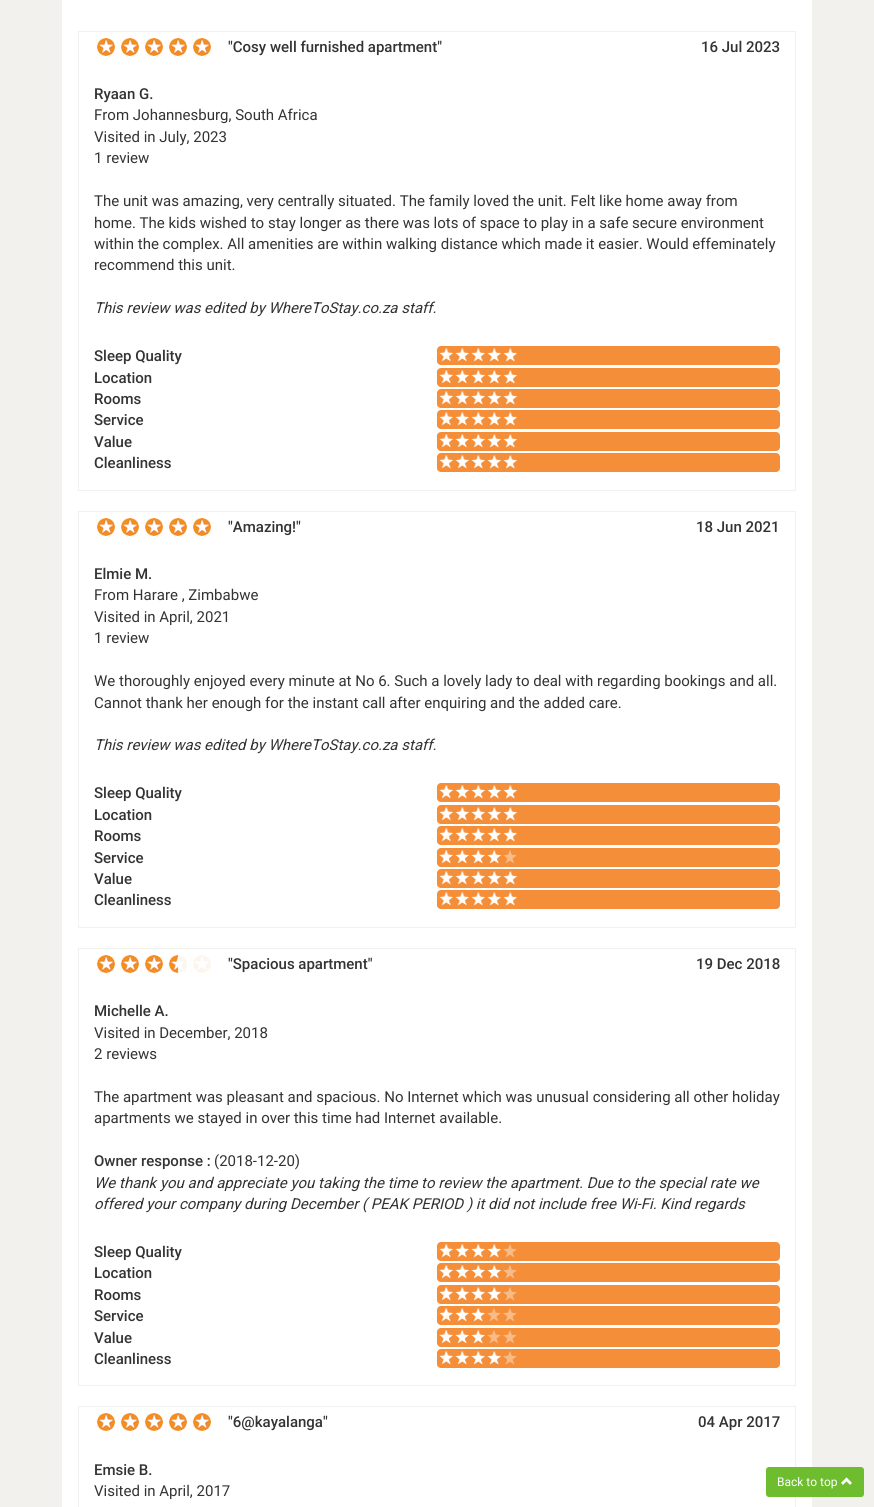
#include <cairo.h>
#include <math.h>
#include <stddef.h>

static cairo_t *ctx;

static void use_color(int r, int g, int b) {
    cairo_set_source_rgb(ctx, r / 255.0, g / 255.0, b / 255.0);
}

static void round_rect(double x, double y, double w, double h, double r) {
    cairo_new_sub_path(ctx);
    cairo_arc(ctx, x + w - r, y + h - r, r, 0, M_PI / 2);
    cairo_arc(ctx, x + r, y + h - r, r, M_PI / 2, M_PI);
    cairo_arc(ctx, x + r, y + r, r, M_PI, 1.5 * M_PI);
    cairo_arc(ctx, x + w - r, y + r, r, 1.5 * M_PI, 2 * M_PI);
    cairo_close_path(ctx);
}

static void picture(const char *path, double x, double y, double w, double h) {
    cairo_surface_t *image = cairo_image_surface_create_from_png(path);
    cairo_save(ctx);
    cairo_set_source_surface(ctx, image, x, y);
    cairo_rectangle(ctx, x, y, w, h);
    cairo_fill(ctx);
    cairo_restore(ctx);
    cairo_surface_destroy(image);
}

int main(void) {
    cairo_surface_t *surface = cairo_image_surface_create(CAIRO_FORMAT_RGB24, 874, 1507);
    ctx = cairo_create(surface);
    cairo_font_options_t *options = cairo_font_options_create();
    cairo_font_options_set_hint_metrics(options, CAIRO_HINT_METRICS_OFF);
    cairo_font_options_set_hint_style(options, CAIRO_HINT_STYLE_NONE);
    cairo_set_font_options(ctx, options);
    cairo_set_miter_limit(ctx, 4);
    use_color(242, 241, 238);
    cairo_paint(ctx);
    use_color(255, 255, 255);
    cairo_rectangle(ctx, 62, 0, 750, 1507);
    cairo_fill(ctx);
    cairo_rectangle(ctx, 78.5, 31.5, 717, 459);
    use_color(242, 241, 238);
    cairo_set_line_width(ctx, 1);
    cairo_stroke(ctx);
    picture("img1.png", 97, 38, 114, 18);
    cairo_select_font_face(ctx, "Roboto Medium", CAIRO_FONT_SLANT_NORMAL, CAIRO_FONT_WEIGHT_NORMAL);
    cairo_set_font_size(ctx, 15);
    use_color(51, 51, 51);
    cairo_move_to(ctx, 228, 52);
    cairo_show_text(ctx, "\"Cosy well furnished apartment\"");
    cairo_move_to(ctx, 701, 52);
    cairo_show_text(ctx, "16 Jul 2023");
    cairo_move_to(ctx, 94, 99);
    cairo_show_text(ctx, "Ryaan G.");
    cairo_select_font_face(ctx, "Roboto", CAIRO_FONT_SLANT_NORMAL, CAIRO_FONT_WEIGHT_NORMAL);
    cairo_move_to(ctx, 94, 120);
    cairo_show_text(ctx, "From Johannesburg, South Africa");
    cairo_move_to(ctx, 94, 142);
    cairo_show_text(ctx, "Visited in July, 2023");
    cairo_move_to(ctx, 94, 163);
    cairo_show_text(ctx, "1 review");
    cairo_move_to(ctx, 94, 206);
    cairo_show_text(ctx, "The unit was amazing, very centrally situated. The family loved the unit. Felt like home away from");
    cairo_move_to(ctx, 94, 228);
    cairo_show_text(ctx, "home. The kids wished to stay longer as there was lots of space to play in a safe secure environment");
    cairo_move_to(ctx, 94, 249);
    cairo_show_text(ctx, "within the complex. All amenities are within walking distance which made it easier. Would effeminately");
    cairo_move_to(ctx, 94, 270);
    cairo_show_text(ctx, "recommend this unit.");
    cairo_select_font_face(ctx, "Roboto", CAIRO_FONT_SLANT_ITALIC, CAIRO_FONT_WEIGHT_NORMAL);
    cairo_move_to(ctx, 94, 313);
    cairo_show_text(ctx, "This review was edited by WhereToStay.co.za staff.");
    cairo_select_font_face(ctx, "Roboto Medium", CAIRO_FONT_SLANT_NORMAL, CAIRO_FONT_WEIGHT_NORMAL);
    cairo_move_to(ctx, 94, 361);
    cairo_show_text(ctx, "Sleep Quality");
    use_color(245, 142, 57);
    round_rect(437, 346, 343, 19, 4);
    cairo_fill(ctx);
    picture("img2.png", 439, 348, 79, 14);
    use_color(51, 51, 51);
    cairo_move_to(ctx, 94, 383);
    cairo_show_text(ctx, "Location");
    use_color(245, 142, 57);
    round_rect(437, 368, 343, 19, 4);
    cairo_fill(ctx);
    picture("img2.png", 439, 370, 79, 14);
    use_color(51, 51, 51);
    cairo_move_to(ctx, 94, 404);
    cairo_show_text(ctx, "Rooms");
    use_color(245, 142, 57);
    round_rect(437, 389, 343, 19, 4);
    cairo_fill(ctx);
    picture("img2.png", 439, 391, 79, 14);
    use_color(51, 51, 51);
    cairo_move_to(ctx, 94, 425);
    cairo_show_text(ctx, "Service");
    use_color(245, 142, 57);
    round_rect(437, 410, 343, 19, 4);
    cairo_fill(ctx);
    picture("img2.png", 439, 412, 79, 14);
    use_color(51, 51, 51);
    cairo_move_to(ctx, 94, 447);
    cairo_show_text(ctx, "Value");
    use_color(245, 142, 57);
    round_rect(437, 432, 343, 19, 4);
    cairo_fill(ctx);
    picture("img2.png", 439, 434, 79, 14);
    use_color(51, 51, 51);
    cairo_move_to(ctx, 94, 468);
    cairo_show_text(ctx, "Cleanliness");
    use_color(245, 142, 57);
    round_rect(437, 453, 343, 19, 4);
    cairo_fill(ctx);
    picture("img2.png", 439, 455, 79, 14);
    cairo_rectangle(ctx, 78.5, 511.5, 717, 416);
    use_color(242, 241, 238);
    cairo_stroke(ctx);
    picture("img1.png", 97, 518, 114, 18);
    use_color(51, 51, 51);
    cairo_move_to(ctx, 228, 532);
    cairo_show_text(ctx, "\"Amazing!\"");
    cairo_move_to(ctx, 696, 532);
    cairo_show_text(ctx, "18 Jun 2021");
    cairo_move_to(ctx, 94, 579);
    cairo_show_text(ctx, "Elmie M.");
    cairo_select_font_face(ctx, "Roboto", CAIRO_FONT_SLANT_NORMAL, CAIRO_FONT_WEIGHT_NORMAL);
    cairo_move_to(ctx, 94, 600);
    cairo_show_text(ctx, "From Harare , Zimbabwe");
    cairo_move_to(ctx, 94, 622);
    cairo_show_text(ctx, "Visited in April, 2021");
    cairo_move_to(ctx, 94, 643);
    cairo_show_text(ctx, "1 review");
    cairo_move_to(ctx, 94, 686);
    cairo_show_text(ctx, "We thoroughly enjoyed every minute at No 6. Such a lovely lady to deal with regarding bookings and all.");
    cairo_move_to(ctx, 94, 708);
    cairo_show_text(ctx, "Cannot thank her enough for the instant call after enquiring and the added care.");
    cairo_select_font_face(ctx, "Roboto", CAIRO_FONT_SLANT_ITALIC, CAIRO_FONT_WEIGHT_NORMAL);
    cairo_move_to(ctx, 94, 750);
    cairo_show_text(ctx, "This review was edited by WhereToStay.co.za staff.");
    cairo_select_font_face(ctx, "Roboto Medium", CAIRO_FONT_SLANT_NORMAL, CAIRO_FONT_WEIGHT_NORMAL);
    cairo_move_to(ctx, 94, 798);
    cairo_show_text(ctx, "Sleep Quality");
    use_color(245, 142, 57);
    round_rect(437, 783, 343, 19, 4);
    cairo_fill(ctx);
    picture("img2.png", 439, 785, 79, 14);
    use_color(51, 51, 51);
    cairo_move_to(ctx, 94, 820);
    cairo_show_text(ctx, "Location");
    use_color(245, 142, 57);
    round_rect(437, 805, 343, 19, 4);
    cairo_fill(ctx);
    picture("img2.png", 439, 807, 79, 14);
    use_color(51, 51, 51);
    cairo_move_to(ctx, 94, 841);
    cairo_show_text(ctx, "Rooms");
    use_color(245, 142, 57);
    round_rect(437, 826, 343, 19, 4);
    cairo_fill(ctx);
    picture("img2.png", 439, 828, 79, 14);
    use_color(51, 51, 51);
    cairo_move_to(ctx, 94, 863);
    cairo_show_text(ctx, "Service");
    use_color(245, 142, 57);
    round_rect(437, 848, 343, 19, 4);
    cairo_fill(ctx);
    picture("img3.png", 439, 850, 78, 14);
    use_color(51, 51, 51);
    cairo_move_to(ctx, 94, 884);
    cairo_show_text(ctx, "Value");
    use_color(245, 142, 57);
    round_rect(437, 869, 343, 19, 4);
    cairo_fill(ctx);
    picture("img2.png", 439, 871, 79, 14);
    use_color(51, 51, 51);
    cairo_move_to(ctx, 94, 905);
    cairo_show_text(ctx, "Cleanliness");
    use_color(245, 142, 57);
    round_rect(437, 890, 343, 19, 4);
    cairo_fill(ctx);
    picture("img2.png", 439, 892, 79, 14);
    cairo_rectangle(ctx, 78.5, 948.5, 717, 437);
    use_color(242, 241, 238);
    cairo_stroke(ctx);
    picture("img4.png", 97, 955, 114, 18);
    use_color(51, 51, 51);
    cairo_move_to(ctx, 228, 969);
    cairo_show_text(ctx, "\"Spacious apartment\"");
    cairo_move_to(ctx, 696, 969);
    cairo_show_text(ctx, "19 Dec 2018");
    cairo_move_to(ctx, 94, 1016);
    cairo_show_text(ctx, "Michelle A.");
    cairo_select_font_face(ctx, "Roboto", CAIRO_FONT_SLANT_NORMAL, CAIRO_FONT_WEIGHT_NORMAL);
    cairo_move_to(ctx, 94, 1038);
    cairo_show_text(ctx, "Visited in December, 2018");
    cairo_move_to(ctx, 94, 1059);
    cairo_show_text(ctx, "2 reviews");
    cairo_move_to(ctx, 94, 1102);
    cairo_show_text(ctx, "The apartment was pleasant and spacious. No Internet which was unusual considering all other holiday");
    cairo_move_to(ctx, 94, 1123);
    cairo_show_text(ctx, "apartments we stayed in over this time had Internet available.");
    cairo_select_font_face(ctx, "Roboto Medium", CAIRO_FONT_SLANT_NORMAL, CAIRO_FONT_WEIGHT_NORMAL);
    cairo_move_to(ctx, 94, 1166);
    cairo_show_text(ctx, "Owner response :");
    cairo_select_font_face(ctx, "Roboto", CAIRO_FONT_SLANT_NORMAL, CAIRO_FONT_WEIGHT_NORMAL);
    cairo_move_to(ctx, 214, 1166);
    cairo_show_text(ctx, "(2018-12-20)");
    cairo_select_font_face(ctx, "Roboto", CAIRO_FONT_SLANT_ITALIC, CAIRO_FONT_WEIGHT_NORMAL);
    cairo_move_to(ctx, 94, 1188);
    cairo_show_text(ctx, "We thank you and appreciate you taking the time to review the apartment. Due to the special rate we");
    cairo_move_to(ctx, 94, 1209);
    cairo_show_text(ctx, "offered your company during December ( PEAK PERIOD ) it did not include free Wi-Fi. Kind regards");
    cairo_select_font_face(ctx, "Roboto Medium", CAIRO_FONT_SLANT_NORMAL, CAIRO_FONT_WEIGHT_NORMAL);
    cairo_move_to(ctx, 94, 1257);
    cairo_show_text(ctx, "Sleep Quality");
    use_color(245, 142, 57);
    round_rect(437, 1242, 343, 19, 4);
    cairo_fill(ctx);
    picture("img3.png", 439, 1244, 78, 14);
    use_color(51, 51, 51);
    cairo_move_to(ctx, 94, 1278);
    cairo_show_text(ctx, "Location");
    use_color(245, 142, 57);
    round_rect(437, 1263, 343, 19, 4);
    cairo_fill(ctx);
    picture("img3.png", 439, 1265, 78, 14);
    use_color(51, 51, 51);
    cairo_move_to(ctx, 94, 1300);
    cairo_show_text(ctx, "Rooms");
    use_color(245, 142, 57);
    round_rect(437, 1285, 343, 19, 4);
    cairo_fill(ctx);
    picture("img3.png", 439, 1287, 78, 14);
    use_color(51, 51, 51);
    cairo_move_to(ctx, 94, 1321);
    cairo_show_text(ctx, "Service");
    use_color(245, 142, 57);
    round_rect(437, 1306, 343, 19, 4);
    cairo_fill(ctx);
    picture("img5.png", 439, 1308, 78, 14);
    use_color(51, 51, 51);
    cairo_move_to(ctx, 94, 1343);
    cairo_show_text(ctx, "Value");
    use_color(245, 142, 57);
    round_rect(437, 1328, 343, 19, 4);
    cairo_fill(ctx);
    picture("img5.png", 439, 1330, 78, 14);
    use_color(51, 51, 51);
    cairo_move_to(ctx, 94, 1364);
    cairo_show_text(ctx, "Cleanliness");
    use_color(245, 142, 57);
    round_rect(437, 1349, 343, 19, 4);
    cairo_fill(ctx);
    picture("img3.png", 439, 1351, 78, 14);
    cairo_rectangle(ctx, 78.5, 1406.5, 717, 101);
    use_color(242, 241, 238);
    cairo_stroke(ctx);
    picture("img1.png", 97, 1413, 114, 18);
    use_color(51, 51, 51);
    cairo_move_to(ctx, 228, 1427);
    cairo_show_text(ctx, "\"6@kayalanga\"");
    cairo_move_to(ctx, 698, 1427);
    cairo_show_text(ctx, "04 Apr 2017");
    cairo_move_to(ctx, 94, 1475);
    cairo_show_text(ctx, "Emsie B.");
    cairo_select_font_face(ctx, "Roboto", CAIRO_FONT_SLANT_NORMAL, CAIRO_FONT_WEIGHT_NORMAL);
    cairo_move_to(ctx, 94, 1496);
    cairo_show_text(ctx, "Visited in April, 2017");
    use_color(110, 189, 46);
    round_rect(766.5, 1467.5, 97, 29, 2.5);
    cairo_fill_preserve(ctx);
    cairo_stroke(ctx);
    cairo_set_font_size(ctx, 12);
    use_color(255, 255, 255);
    cairo_move_to(ctx, 777, 1486);
    cairo_show_text(ctx, "Back to top");
    picture("img6.png", 841, 1477, 11, 8);
    cairo_surface_write_to_png(surface, "result.png");
    cairo_font_options_destroy(options);
    cairo_destroy(ctx);
    cairo_surface_destroy(surface);
    return 0;
}
